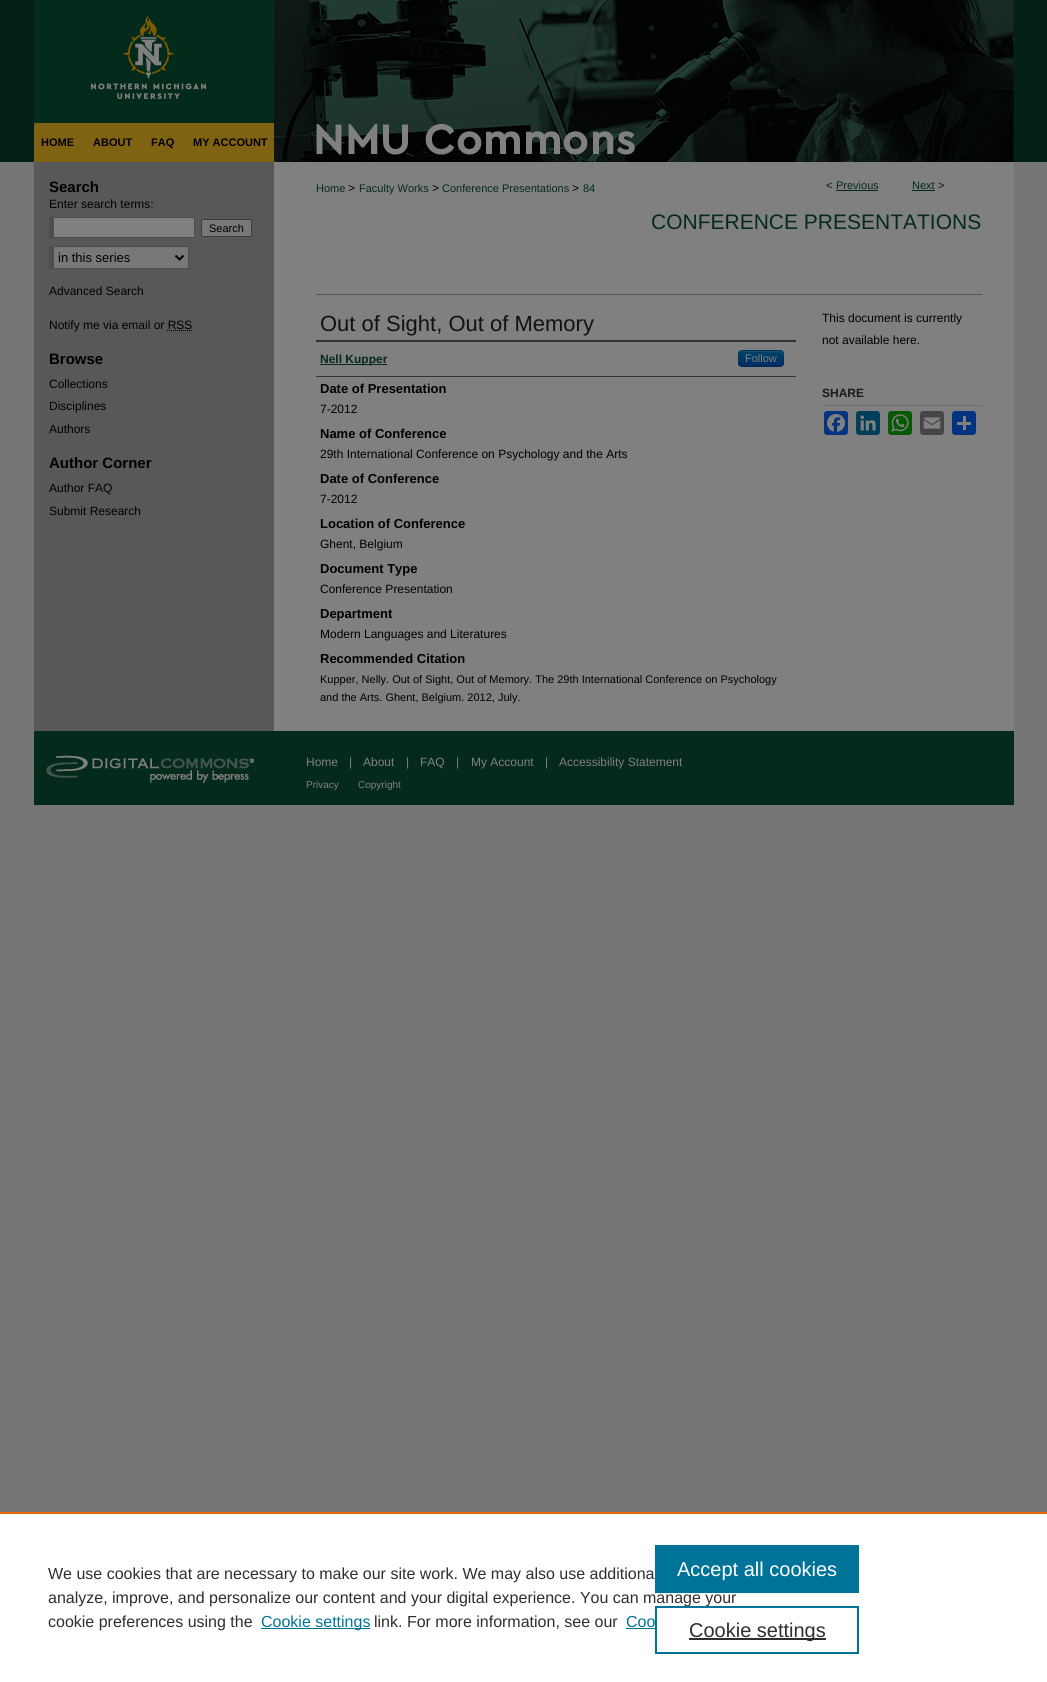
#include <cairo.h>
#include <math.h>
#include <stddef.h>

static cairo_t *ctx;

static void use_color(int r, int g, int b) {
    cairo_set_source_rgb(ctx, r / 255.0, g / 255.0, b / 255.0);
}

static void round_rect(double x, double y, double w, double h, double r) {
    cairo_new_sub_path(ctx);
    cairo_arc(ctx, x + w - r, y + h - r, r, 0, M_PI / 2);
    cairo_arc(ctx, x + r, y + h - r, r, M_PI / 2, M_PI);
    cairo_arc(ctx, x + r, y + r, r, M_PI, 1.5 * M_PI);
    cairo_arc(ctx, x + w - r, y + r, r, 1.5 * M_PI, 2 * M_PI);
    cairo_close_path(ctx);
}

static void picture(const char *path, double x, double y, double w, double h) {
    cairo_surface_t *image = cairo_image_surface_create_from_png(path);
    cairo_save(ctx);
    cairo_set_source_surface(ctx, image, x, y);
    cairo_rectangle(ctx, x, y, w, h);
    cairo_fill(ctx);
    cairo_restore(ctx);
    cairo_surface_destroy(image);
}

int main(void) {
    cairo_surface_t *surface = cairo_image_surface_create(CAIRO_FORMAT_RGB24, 1047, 1682);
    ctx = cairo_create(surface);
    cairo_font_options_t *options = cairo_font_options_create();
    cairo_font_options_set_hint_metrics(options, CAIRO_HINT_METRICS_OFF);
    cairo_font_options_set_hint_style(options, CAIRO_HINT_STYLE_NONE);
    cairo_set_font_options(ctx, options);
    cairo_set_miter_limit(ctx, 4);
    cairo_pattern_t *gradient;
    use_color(117, 117, 117);
    cairo_paint(ctx);
    use_color(2, 32, 24);
    cairo_rectangle(ctx, 0, 0, 1047, 162);
    cairo_fill(ctx);
    picture("img1.png", 34, 0, 980, 123);
    picture("img2.png", 91, 16, 115, 83);
    use_color(128, 98, 19);
    cairo_rectangle(ctx, 34, 123, 240, 39);
    cairo_fill(ctx);
    cairo_select_font_face(ctx, "Liberation Sans", CAIRO_FONT_SLANT_NORMAL, CAIRO_FONT_WEIGHT_BOLD);
    cairo_set_font_size(ctx, 11);
    use_color(0, 0, 0);
    cairo_move_to(ctx, 41, 146);
    cairo_show_text(ctx, "HOME");
    cairo_move_to(ctx, 93, 146);
    cairo_show_text(ctx, "ABOUT");
    cairo_move_to(ctx, 151, 146);
    cairo_show_text(ctx, "FAQ");
    cairo_move_to(ctx, 193, 146);
    cairo_show_text(ctx, "MY ACCOUNT");
    picture("img3.png", 274, 123, 740, 39);
    use_color(88, 88, 88);
    cairo_rectangle(ctx, 34, 162, 240, 569);
    cairo_fill(ctx);
    use_color(128, 128, 128);
    cairo_rectangle(ctx, 274, 162, 740, 569);
    cairo_fill(ctx);
    cairo_set_font_size(ctx, 15);
    use_color(0, 0, 0);
    cairo_move_to(ctx, 49, 192);
    cairo_show_text(ctx, "Search");
    cairo_select_font_face(ctx, "Liberation Sans", CAIRO_FONT_SLANT_NORMAL, CAIRO_FONT_WEIGHT_NORMAL);
    cairo_set_font_size(ctx, 12);
    cairo_move_to(ctx, 49, 208);
    cairo_show_text(ctx, "Enter search terms:");
    use_color(128, 128, 128);
    cairo_rectangle(ctx, 54, 218, 140, 19);
    cairo_fill(ctx);
    use_color(77, 77, 77);
    cairo_rectangle(ctx, 49, 217, 146, 1);
    cairo_fill(ctx);
    cairo_rectangle(ctx, 194, 217, 1, 21);
    cairo_fill(ctx);
    cairo_rectangle(ctx, 49, 237, 146, 1);
    cairo_fill(ctx);
    cairo_rectangle(ctx, 49, 217, 5, 21);
    cairo_fill(ctx);
    use_color(120, 120, 120);
    round_rect(201.5, 219.5, 50, 17, 1.5);
    cairo_fill_preserve(ctx);
    use_color(59, 59, 59);
    cairo_set_line_width(ctx, 1);
    cairo_stroke(ctx);
    cairo_set_font_size(ctx, 11);
    use_color(0, 0, 0);
    cairo_move_to(ctx, 209, 232);
    cairo_show_text(ctx, "Search");
    use_color(120, 120, 120);
    cairo_rectangle(ctx, 54, 247, 134, 21);
    cairo_fill(ctx);
    use_color(77, 77, 77);
    cairo_rectangle(ctx, 49, 246, 140, 1);
    cairo_fill(ctx);
    cairo_rectangle(ctx, 188, 246, 1, 23);
    cairo_fill(ctx);
    cairo_rectangle(ctx, 49, 268, 140, 1);
    cairo_fill(ctx);
    cairo_rectangle(ctx, 49, 246, 5, 23);
    cairo_fill(ctx);
    cairo_new_path(ctx);
    cairo_move_to(ctx, 175.5, 255.5);
    cairo_line_to(ctx, 179.5, 259.5);
    cairo_line_to(ctx, 183.5, 255.5);
    use_color(0, 0, 0);
    cairo_set_line_width(ctx, 2);
    cairo_stroke(ctx);
    cairo_set_font_size(ctx, 13);
    cairo_move_to(ctx, 58, 262);
    cairo_show_text(ctx, "in this series");
    cairo_set_font_size(ctx, 12);
    cairo_move_to(ctx, 49, 295);
    cairo_show_text(ctx, "Advanced Search");
    cairo_move_to(ctx, 49, 329);
    cairo_show_text(ctx, "Notify me via email or RSS");
    cairo_new_path(ctx);
    cairo_move_to(ctx, 167, 330.5);
    cairo_line_to(ctx, 192, 330.5);
    cairo_set_line_width(ctx, 1);
    cairo_set_dash(ctx, (double[]){1, 1}, 2, 0);
    cairo_stroke(ctx);
    cairo_new_path(ctx);
    cairo_move_to(ctx, 167, 332.5);
    cairo_line_to(ctx, 192, 332.5);
    use_color(77, 77, 77);
    cairo_stroke(ctx);
    cairo_select_font_face(ctx, "Liberation Sans", CAIRO_FONT_SLANT_NORMAL, CAIRO_FONT_WEIGHT_BOLD);
    cairo_set_font_size(ctx, 15);
    use_color(0, 0, 0);
    cairo_move_to(ctx, 49, 364);
    cairo_show_text(ctx, "Browse");
    cairo_select_font_face(ctx, "Liberation Sans", CAIRO_FONT_SLANT_NORMAL, CAIRO_FONT_WEIGHT_NORMAL);
    cairo_set_font_size(ctx, 12);
    cairo_move_to(ctx, 49, 388);
    cairo_show_text(ctx, "Collections");
    cairo_move_to(ctx, 49, 410);
    cairo_show_text(ctx, "Disciplines");
    cairo_move_to(ctx, 49, 433);
    cairo_show_text(ctx, "Authors");
    cairo_select_font_face(ctx, "Liberation Sans", CAIRO_FONT_SLANT_NORMAL, CAIRO_FONT_WEIGHT_BOLD);
    cairo_set_font_size(ctx, 15);
    cairo_move_to(ctx, 49, 468);
    cairo_show_text(ctx, "Author Corner");
    cairo_select_font_face(ctx, "Liberation Sans", CAIRO_FONT_SLANT_NORMAL, CAIRO_FONT_WEIGHT_NORMAL);
    cairo_set_font_size(ctx, 12);
    cairo_move_to(ctx, 49, 492);
    cairo_show_text(ctx, "Author FAQ");
    cairo_move_to(ctx, 49, 515);
    cairo_show_text(ctx, "Submit Research");
    cairo_set_font_size(ctx, 11);
    use_color(5, 42, 29);
    cairo_move_to(ctx, 316, 192);
    cairo_show_text(ctx, "Home");
    cairo_set_font_size(ctx, 12);
    use_color(0, 0, 0);
    cairo_move_to(ctx, 348, 192);
    cairo_show_text(ctx, ">");
    cairo_set_font_size(ctx, 11);
    use_color(5, 42, 29);
    cairo_move_to(ctx, 359, 192);
    cairo_show_text(ctx, "Faculty Works");
    cairo_set_font_size(ctx, 12);
    use_color(0, 0, 0);
    cairo_move_to(ctx, 432, 192);
    cairo_show_text(ctx, ">");
    cairo_set_font_size(ctx, 11);
    use_color(5, 42, 29);
    cairo_move_to(ctx, 442, 192);
    cairo_show_text(ctx, "Conference Presentations");
    cairo_set_font_size(ctx, 12);
    use_color(0, 0, 0);
    cairo_move_to(ctx, 572, 192);
    cairo_show_text(ctx, ">");
    cairo_set_font_size(ctx, 11);
    use_color(5, 42, 29);
    cairo_move_to(ctx, 583, 192);
    cairo_show_text(ctx, "84");
    use_color(17, 17, 17);
    cairo_move_to(ctx, 826, 189);
    cairo_show_text(ctx, "<");
    use_color(5, 42, 29);
    cairo_move_to(ctx, 836, 189);
    cairo_show_text(ctx, "Previous");
    cairo_rectangle(ctx, 836, 190, 42, 1);
    cairo_fill(ctx);
    cairo_move_to(ctx, 912, 189);
    cairo_show_text(ctx, "Next");
    cairo_rectangle(ctx, 912, 190, 23, 1);
    cairo_fill(ctx);
    use_color(17, 17, 17);
    cairo_move_to(ctx, 938, 189);
    cairo_show_text(ctx, ">");
    cairo_set_font_size(ctx, 21);
    use_color(5, 42, 29);
    cairo_move_to(ctx, 651, 229);
    cairo_show_text(ctx, "CONFERENCE PRESENTATIONS");
    use_color(85, 85, 85);
    cairo_rectangle(ctx, 316, 294, 666, 1);
    cairo_fill(ctx);
    cairo_set_font_size(ctx, 22);
    use_color(17, 17, 17);
    cairo_move_to(ctx, 320, 331);
    cairo_show_text(ctx, "Out of Sight, Out of Memory");
    use_color(51, 51, 51);
    cairo_rectangle(ctx, 316, 340, 480, 2);
    cairo_fill(ctx);
    cairo_rectangle(ctx, 316, 376, 480, 1);
    cairo_fill(ctx);
    use_color(5, 42, 29);
    cairo_rectangle(ctx, 320, 364, 67, 1);
    cairo_fill(ctx);
    cairo_select_font_face(ctx, "Liberation Sans", CAIRO_FONT_SLANT_NORMAL, CAIRO_FONT_WEIGHT_BOLD);
    cairo_set_font_size(ctx, 12);
    cairo_move_to(ctx, 320, 363);
    cairo_show_text(ctx, "Nell Kupper");
    use_color(0, 58, 102);
    round_rect(738, 350, 46, 17, 4);
    cairo_fill(ctx);
    cairo_save(ctx);
    round_rect(738, 350, 46, 17, 4);
    cairo_clip(ctx);
    gradient = cairo_pattern_create_linear(761, 351, 761, 366);
    cairo_pattern_add_color_stop_rgba(gradient, 0, 0, 0.267, 0.4, 1);
    cairo_pattern_add_color_stop_rgba(gradient, 1, 0, 0.169, 0.4, 1);
    cairo_set_source(ctx, gradient);
    cairo_pattern_destroy(gradient);
    cairo_rectangle(ctx, 738, 351, 46, 15);
    cairo_fill(ctx);
    cairo_restore(ctx);
    cairo_set_source_rgba(ctx, 0.502, 0.502, 0.502, 0.2);
    cairo_new_path(ctx);
    cairo_move_to(ctx, 742, 352);
    cairo_line_to(ctx, 775, 352);
    cairo_curve_to(ctx, 782, 352, 783, 352, 783, 358);
    cairo_line_to(ctx, 783, 364);
    cairo_line_to(ctx, 783, 357);
    cairo_curve_to(ctx, 783, 350, 781, 351, 774, 351);
    cairo_line_to(ctx, 748, 351);
    cairo_curve_to(ctx, 741, 351, 739, 350, 739, 357);
    cairo_line_to(ctx, 739, 365);
    cairo_curve_to(ctx, 739, 362, 737, 352, 742, 352);
    cairo_close_path(ctx);
    cairo_fill(ctx);
    cairo_new_path(ctx);
    cairo_move_to(ctx, 782.5, 365.5);
    cairo_curve_to(ctx, 782, 366, 781, 366.5, 780, 366.5);
    cairo_line_to(ctx, 742, 366.5);
    cairo_curve_to(ctx, 741, 366.5, 740, 366, 739.5, 365.5);
    cairo_set_source_rgba(ctx, 0, 0, 0, 0.25);
    cairo_set_dash(ctx, NULL, 0, 0);
    cairo_stroke(ctx);
    cairo_new_path(ctx);
    cairo_move_to(ctx, 739.5, 365.5);
    cairo_curve_to(ctx, 738, 363.5, 738.5, 360.5, 738.5, 358.5);
    cairo_curve_to(ctx, 738.5, 349.5, 739, 350.5, 748.5, 350.5);
    cairo_line_to(ctx, 773.5, 350.5);
    cairo_curve_to(ctx, 783, 350.5, 783.5, 349.5, 783.5, 358.5);
    cairo_curve_to(ctx, 783.5, 360.5, 784, 363.5, 782.5, 365.5);
    cairo_set_source_rgba(ctx, 0, 0, 0, 0.1);
    cairo_stroke(ctx);
    cairo_select_font_face(ctx, "Liberation Sans", CAIRO_FONT_SLANT_NORMAL, CAIRO_FONT_WEIGHT_NORMAL);
    cairo_set_font_size(ctx, 11);
    use_color(128, 128, 128);
    cairo_move_to(ctx, 745, 362);
    cairo_show_text(ctx, "Follow");
    cairo_select_font_face(ctx, "Liberation Sans", CAIRO_FONT_SLANT_NORMAL, CAIRO_FONT_WEIGHT_BOLD);
    cairo_set_font_size(ctx, 13);
    use_color(0, 0, 0);
    cairo_move_to(ctx, 320, 393);
    cairo_show_text(ctx, "Date of Presentation");
    cairo_select_font_face(ctx, "Liberation Sans", CAIRO_FONT_SLANT_NORMAL, CAIRO_FONT_WEIGHT_NORMAL);
    cairo_set_font_size(ctx, 12);
    cairo_move_to(ctx, 320, 413);
    cairo_show_text(ctx, "7-2012");
    cairo_select_font_face(ctx, "Liberation Sans", CAIRO_FONT_SLANT_NORMAL, CAIRO_FONT_WEIGHT_BOLD);
    cairo_set_font_size(ctx, 13);
    cairo_move_to(ctx, 320, 438);
    cairo_show_text(ctx, "Name of Conference");
    cairo_select_font_face(ctx, "Liberation Sans", CAIRO_FONT_SLANT_NORMAL, CAIRO_FONT_WEIGHT_NORMAL);
    cairo_set_font_size(ctx, 12);
    cairo_move_to(ctx, 320, 458);
    cairo_show_text(ctx, "29th International Conference on Psychology and the Arts");
    cairo_select_font_face(ctx, "Liberation Sans", CAIRO_FONT_SLANT_NORMAL, CAIRO_FONT_WEIGHT_BOLD);
    cairo_set_font_size(ctx, 13);
    cairo_move_to(ctx, 320, 483);
    cairo_show_text(ctx, "Date of Conference");
    cairo_select_font_face(ctx, "Liberation Sans", CAIRO_FONT_SLANT_NORMAL, CAIRO_FONT_WEIGHT_NORMAL);
    cairo_set_font_size(ctx, 12);
    cairo_move_to(ctx, 320, 503);
    cairo_show_text(ctx, "7-2012");
    cairo_select_font_face(ctx, "Liberation Sans", CAIRO_FONT_SLANT_NORMAL, CAIRO_FONT_WEIGHT_BOLD);
    cairo_set_font_size(ctx, 13);
    cairo_move_to(ctx, 320, 528);
    cairo_show_text(ctx, "Location of Conference");
    cairo_select_font_face(ctx, "Liberation Sans", CAIRO_FONT_SLANT_NORMAL, CAIRO_FONT_WEIGHT_NORMAL);
    cairo_set_font_size(ctx, 12);
    cairo_move_to(ctx, 320, 548);
    cairo_show_text(ctx, "Ghent, Belgium");
    cairo_select_font_face(ctx, "Liberation Sans", CAIRO_FONT_SLANT_NORMAL, CAIRO_FONT_WEIGHT_BOLD);
    cairo_set_font_size(ctx, 13);
    cairo_move_to(ctx, 320, 573);
    cairo_show_text(ctx, "Document Type");
    cairo_select_font_face(ctx, "Liberation Sans", CAIRO_FONT_SLANT_NORMAL, CAIRO_FONT_WEIGHT_NORMAL);
    cairo_set_font_size(ctx, 12);
    cairo_move_to(ctx, 320, 593);
    cairo_show_text(ctx, "Conference Presentation");
    cairo_select_font_face(ctx, "Liberation Sans", CAIRO_FONT_SLANT_NORMAL, CAIRO_FONT_WEIGHT_BOLD);
    cairo_set_font_size(ctx, 13);
    cairo_move_to(ctx, 320, 618);
    cairo_show_text(ctx, "Department");
    cairo_select_font_face(ctx, "Liberation Sans", CAIRO_FONT_SLANT_NORMAL, CAIRO_FONT_WEIGHT_NORMAL);
    cairo_set_font_size(ctx, 12);
    cairo_move_to(ctx, 320, 638);
    cairo_show_text(ctx, "Modern Languages and Literatures");
    cairo_select_font_face(ctx, "Liberation Sans", CAIRO_FONT_SLANT_NORMAL, CAIRO_FONT_WEIGHT_BOLD);
    cairo_set_font_size(ctx, 13);
    cairo_move_to(ctx, 320, 663);
    cairo_show_text(ctx, "Recommended Citation");
    cairo_select_font_face(ctx, "Liberation Sans", CAIRO_FONT_SLANT_NORMAL, CAIRO_FONT_WEIGHT_NORMAL);
    cairo_set_font_size(ctx, 11);
    cairo_move_to(ctx, 320, 683);
    cairo_show_text(ctx, "Kupper, Nelly. Out of Sight, Out of Memory. The 29th International Conference on Psychology");
    cairo_move_to(ctx, 320, 701);
    cairo_show_text(ctx, "and the Arts. Ghent, Belgium. 2012, July.");
    cairo_set_font_size(ctx, 12);
    cairo_move_to(ctx, 822, 322);
    cairo_show_text(ctx, "This document is currently");
    cairo_move_to(ctx, 822, 344);
    cairo_show_text(ctx, "not available here.");
    use_color(111, 111, 111);
    cairo_rectangle(ctx, 822, 405, 160, 1);
    cairo_fill(ctx);
    cairo_select_font_face(ctx, "Liberation Sans", CAIRO_FONT_SLANT_NORMAL, CAIRO_FONT_WEIGHT_BOLD);
    use_color(26, 26, 26);
    cairo_move_to(ctx, 822, 397);
    cairo_show_text(ctx, "SHARE");
    use_color(4, 51, 128);
    round_rect(824, 411, 24, 24, 3);
    cairo_fill(ctx);
    picture("img4.png", 827, 414, 18, 18);
    use_color(0, 62, 91);
    round_rect(856, 411, 24, 24, 3);
    cairo_fill(ctx);
    picture("img5.png", 860, 415, 16, 16);
    use_color(9, 88, 5);
    round_rect(888, 411, 24, 24, 3);
    cairo_fill(ctx);
    picture("img6.png", 891, 414, 18, 18);
    use_color(68, 69, 72);
    round_rect(920, 411, 24, 24, 3);
    cairo_fill(ctx);
    picture("img7.png", 923, 417, 18, 12);
    use_color(1, 51, 128);
    round_rect(952, 411, 24, 24, 3);
    cairo_fill(ctx);
    use_color(128, 128, 128);
    cairo_rectangle(ctx, 963, 416, 3, 14);
    cairo_fill(ctx);
    cairo_rectangle(ctx, 957, 422, 14, 3);
    cairo_fill(ctx);
    use_color(5, 42, 29);
    cairo_rectangle(ctx, 274, 731, 740, 74);
    cairo_fill(ctx);
    picture("img8.png", 34, 731, 240, 74);
    cairo_select_font_face(ctx, "Liberation Sans", CAIRO_FONT_SLANT_NORMAL, CAIRO_FONT_WEIGHT_NORMAL);
    use_color(128, 128, 128);
    cairo_move_to(ctx, 306, 766);
    cairo_show_text(ctx, "Home");
    cairo_move_to(ctx, 349, 766);
    cairo_show_text(ctx, "|");
    cairo_move_to(ctx, 363, 766);
    cairo_show_text(ctx, "About");
    cairo_move_to(ctx, 406, 766);
    cairo_show_text(ctx, "|");
    cairo_move_to(ctx, 420, 766);
    cairo_show_text(ctx, "FAQ");
    cairo_move_to(ctx, 456, 766);
    cairo_show_text(ctx, "|");
    cairo_move_to(ctx, 471, 766);
    cairo_show_text(ctx, "My Account");
    cairo_move_to(ctx, 545, 766);
    cairo_show_text(ctx, "|");
    cairo_move_to(ctx, 559, 766);
    cairo_show_text(ctx, "Accessibility Statement");
    cairo_set_font_size(ctx, 10);
    cairo_move_to(ctx, 306, 788);
    cairo_show_text(ctx, "Privacy");
    cairo_move_to(ctx, 358, 788);
    cairo_show_text(ctx, "Copyright");
    use_color(255, 255, 255);
    cairo_rectangle(ctx, 0, 1514, 1047, 168);
    cairo_fill(ctx);
    use_color(235, 101, 0);
    cairo_rectangle(ctx, 0, 1512, 1047, 2);
    cairo_fill(ctx);
    cairo_set_font_size(ctx, 16);
    use_color(46, 46, 46);
    cairo_move_to(ctx, 48, 1579);
    cairo_show_text(ctx, "We use cookies that are necessary to make our site work. We may also use additiona");
    cairo_move_to(ctx, 48, 1603);
    cairo_show_text(ctx, "analyze, improve, and personalize our content and your digital experience. You can manage your");
    cairo_move_to(ctx, 48, 1627);
    cairo_show_text(ctx, "cookie preferences using the");
    use_color(0, 115, 152);
    cairo_rectangle(ctx, 261, 1628, 109, 1);
    cairo_fill(ctx);
    cairo_move_to(ctx, 261, 1627);
    cairo_show_text(ctx, "Cookie settings");
    use_color(46, 46, 46);
    cairo_move_to(ctx, 374, 1627);
    cairo_show_text(ctx, "link. For more information, see our");
    use_color(0, 115, 152);
    cairo_move_to(ctx, 626, 1627);
    cairo_show_text(ctx, "Coo");
    cairo_rectangle(ctx, 626, 1628, 29, 1);
    cairo_fill(ctx);
    cairo_rectangle(ctx, 655, 1545, 204, 48);
    cairo_fill(ctx);
    cairo_set_font_size(ctx, 20);
    use_color(255, 255, 255);
    cairo_move_to(ctx, 677, 1576);
    cairo_show_text(ctx, "Accept all cookies");
    cairo_rectangle(ctx, 656, 1607, 202, 46);
    use_color(0, 115, 152);
    cairo_set_line_width(ctx, 2);
    cairo_stroke(ctx);
    use_color(46, 46, 46);
    cairo_rectangle(ctx, 689, 1638, 137, 2);
    cairo_fill(ctx);
    cairo_move_to(ctx, 689, 1637);
    cairo_show_text(ctx, "Cookie settings");
    cairo_surface_write_to_png(surface, "result.png");
    cairo_font_options_destroy(options);
    cairo_destroy(ctx);
    cairo_surface_destroy(surface);
    return 0;
}
